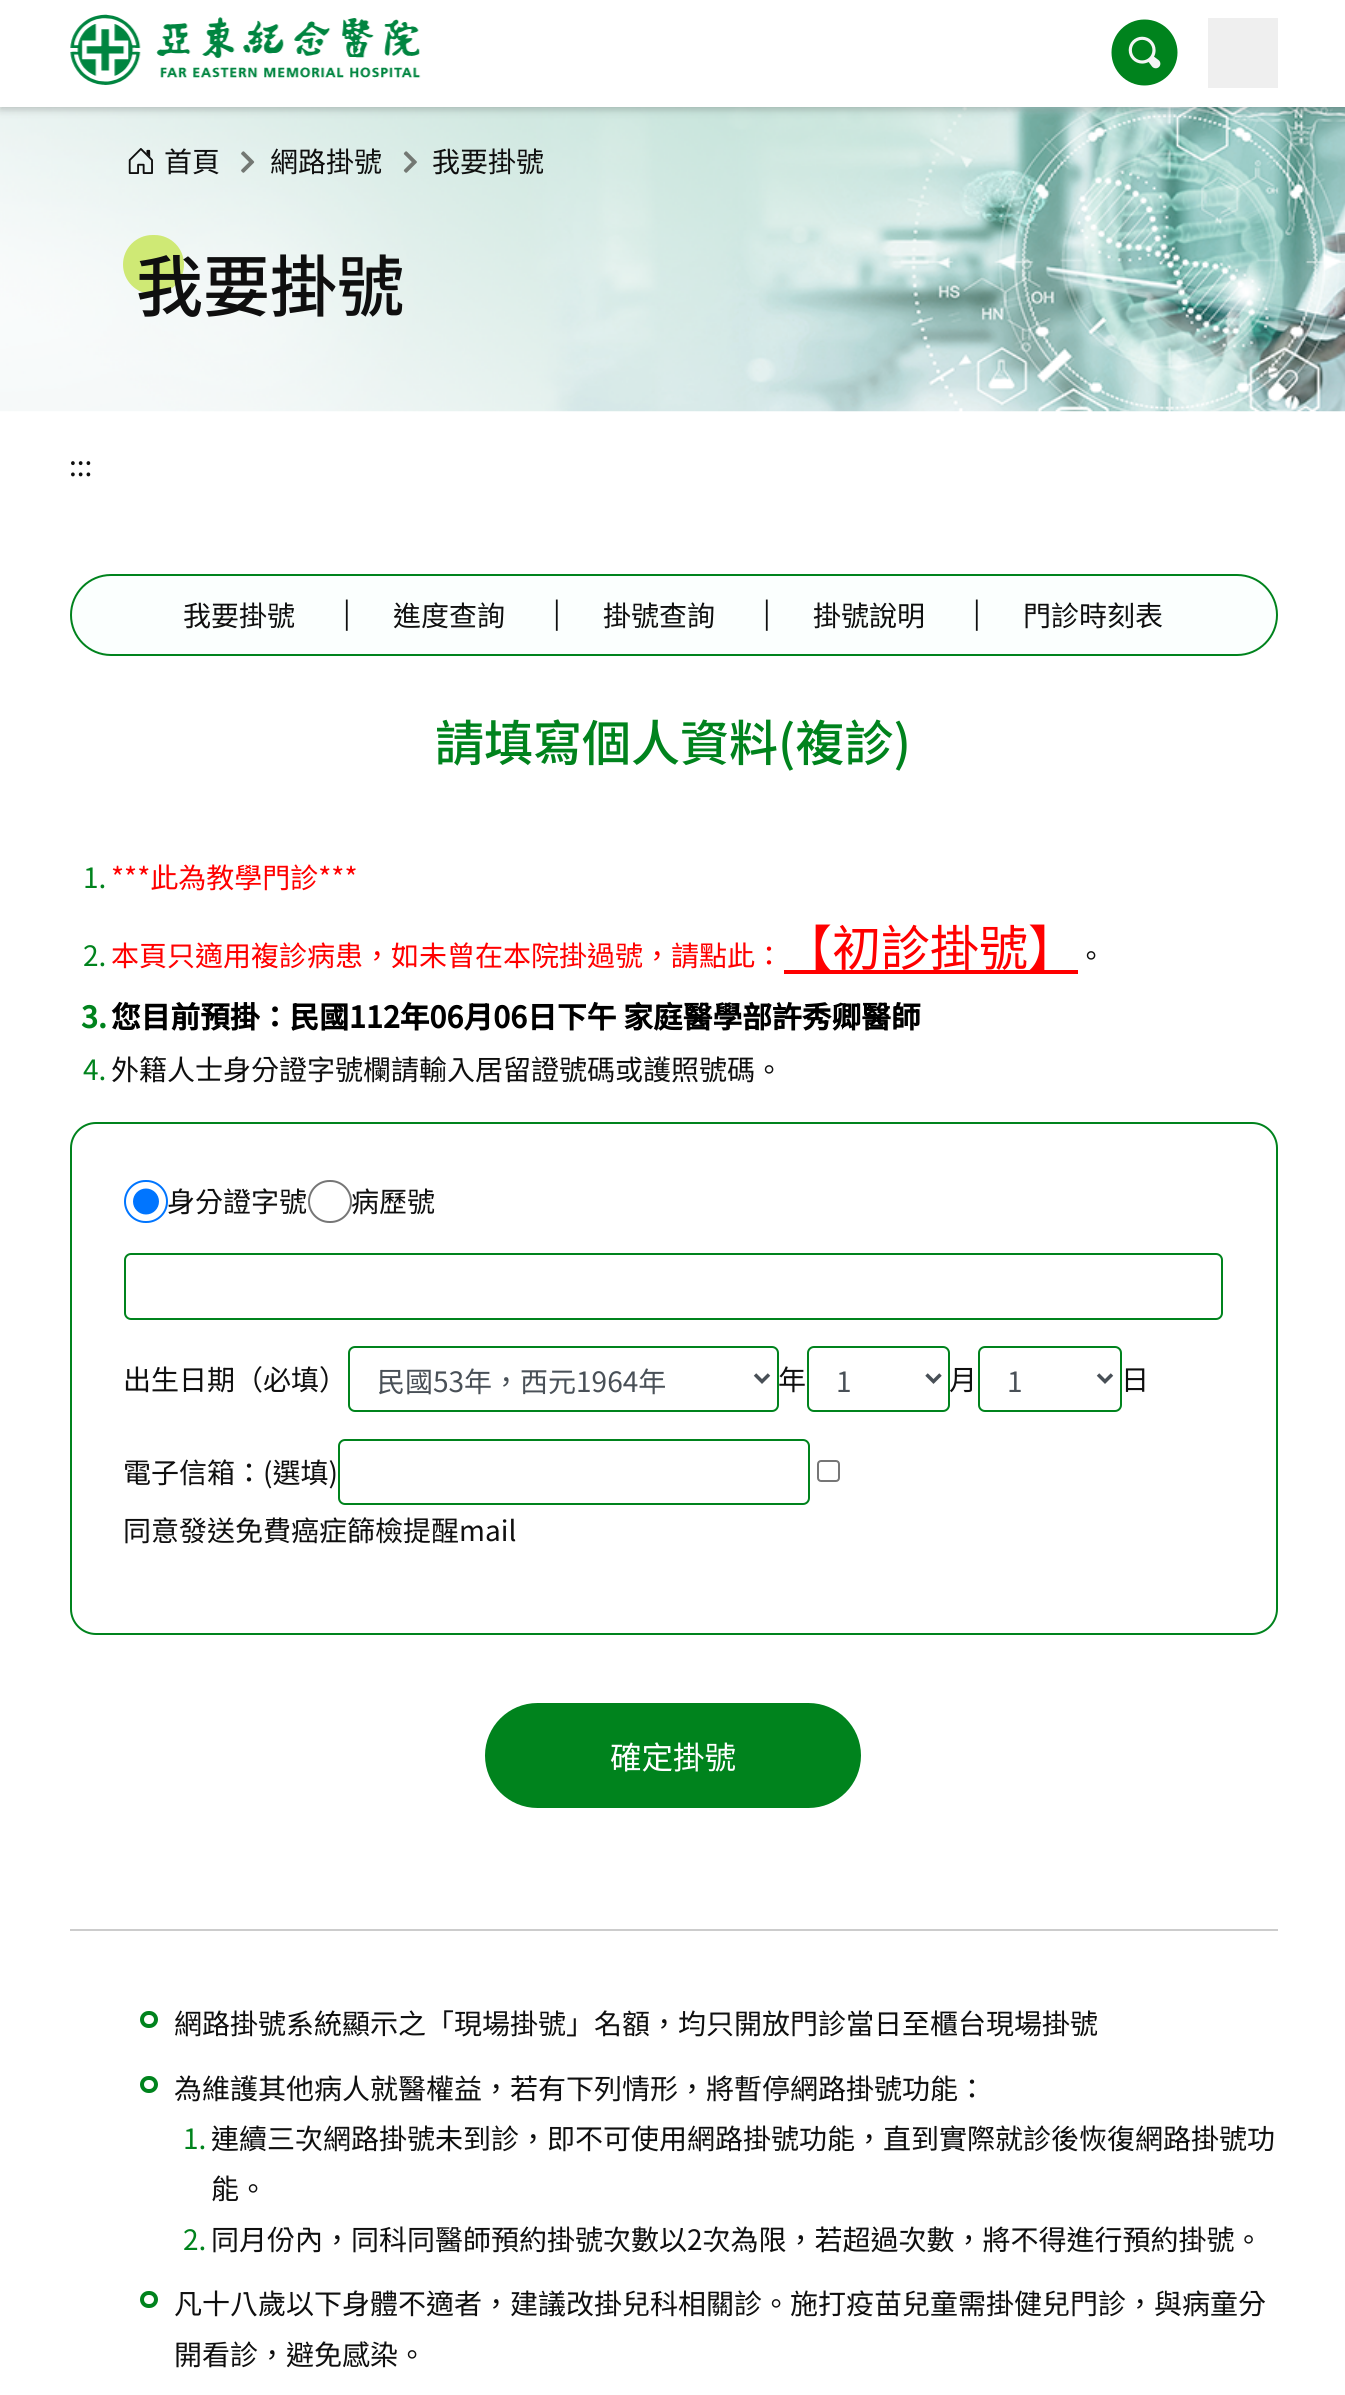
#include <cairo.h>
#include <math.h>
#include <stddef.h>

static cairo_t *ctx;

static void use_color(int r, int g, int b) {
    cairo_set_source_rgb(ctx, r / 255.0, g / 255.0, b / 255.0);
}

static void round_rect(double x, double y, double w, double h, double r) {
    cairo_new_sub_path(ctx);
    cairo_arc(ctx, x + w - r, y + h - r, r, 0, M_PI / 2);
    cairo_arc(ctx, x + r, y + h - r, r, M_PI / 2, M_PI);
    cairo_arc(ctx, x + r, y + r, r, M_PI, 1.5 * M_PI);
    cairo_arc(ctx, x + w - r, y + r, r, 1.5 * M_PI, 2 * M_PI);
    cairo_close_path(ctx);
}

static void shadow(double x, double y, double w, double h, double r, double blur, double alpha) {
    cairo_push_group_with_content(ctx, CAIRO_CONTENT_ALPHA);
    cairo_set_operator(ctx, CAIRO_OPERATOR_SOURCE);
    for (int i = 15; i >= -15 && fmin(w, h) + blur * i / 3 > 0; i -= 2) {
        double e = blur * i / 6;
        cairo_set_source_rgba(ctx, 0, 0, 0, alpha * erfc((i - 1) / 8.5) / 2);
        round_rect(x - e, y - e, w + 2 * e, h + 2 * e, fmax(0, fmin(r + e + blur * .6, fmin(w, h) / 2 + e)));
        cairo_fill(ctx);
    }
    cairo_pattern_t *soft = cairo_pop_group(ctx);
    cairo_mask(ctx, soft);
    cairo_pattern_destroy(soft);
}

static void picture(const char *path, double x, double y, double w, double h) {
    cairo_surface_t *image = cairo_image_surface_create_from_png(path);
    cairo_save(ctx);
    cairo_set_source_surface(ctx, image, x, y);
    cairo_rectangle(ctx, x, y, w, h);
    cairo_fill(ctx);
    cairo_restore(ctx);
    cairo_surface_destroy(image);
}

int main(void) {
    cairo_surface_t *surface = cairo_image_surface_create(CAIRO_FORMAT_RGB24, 1345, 2395);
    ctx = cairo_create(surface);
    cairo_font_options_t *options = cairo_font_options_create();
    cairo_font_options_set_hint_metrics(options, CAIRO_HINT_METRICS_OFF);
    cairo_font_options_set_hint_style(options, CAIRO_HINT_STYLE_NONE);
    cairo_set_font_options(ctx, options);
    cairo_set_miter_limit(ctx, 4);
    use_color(255, 255, 255);
    cairo_paint(ctx);
    picture("img3.png", 0, 107, 1345, 305);
    use_color(0, 0, 0);
    shadow(0, 4, 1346, 106, 0, 4, 0.2);
    use_color(255, 255, 255);
    cairo_rectangle(ctx, 0, 0, 1345, 107);
    cairo_fill(ctx);
    picture("img1.png", 70, 14, 351, 71);
    picture("img2.png", 1111, 19, 67, 67);
    use_color(239, 239, 239);
    cairo_rectangle(ctx, 1208, 18, 70, 70);
    cairo_fill(ctx);
    picture("img4.png", 128, 148, 25, 26);
    cairo_select_font_face(ctx, "Noto Sans TC", CAIRO_FONT_SLANT_NORMAL, CAIRO_FONT_WEIGHT_NORMAL);
    cairo_set_font_size(ctx, 28);
    use_color(15, 15, 15);
    cairo_move_to(ctx, 164, 172);
    cairo_show_text(ctx, "首頁");
    picture("img5.png", 241, 151, 14, 22);
    cairo_move_to(ctx, 270, 172);
    cairo_show_text(ctx, "網路掛號");
    picture("img6.png", 403, 151, 14, 22);
    cairo_move_to(ctx, 432, 172);
    cairo_show_text(ctx, "我要掛號");
    use_color(207, 233, 117);
    round_rect(123, 235, 61, 59, 29.5);
    cairo_fill(ctx);
    cairo_select_font_face(ctx, "Noto Sans TC Medium", CAIRO_FONT_SLANT_NORMAL, CAIRO_FONT_WEIGHT_NORMAL);
    cairo_set_font_size(ctx, 67);
    use_color(15, 15, 15);
    cairo_move_to(ctx, 136, 311);
    cairo_show_text(ctx, "我要掛號");
    cairo_select_font_face(ctx, "Noto Sans TC", CAIRO_FONT_SLANT_NORMAL, CAIRO_FONT_WEIGHT_NORMAL);
    cairo_set_font_size(ctx, 28);
    cairo_move_to(ctx, 69, 476);
    cairo_show_text(ctx, ":::");
    use_color(251, 255, 254);
    round_rect(71, 575, 1206, 80, 40);
    cairo_fill_preserve(ctx);
    use_color(0, 131, 29);
    cairo_stroke(ctx);
    use_color(15, 15, 15);
    cairo_move_to(ctx, 183, 626);
    cairo_show_text(ctx, "我要掛號");
    cairo_move_to(ctx, 343, 623);
    cairo_show_text(ctx, "|");
    cairo_move_to(ctx, 393, 626);
    cairo_show_text(ctx, "進度查詢");
    cairo_move_to(ctx, 553, 623);
    cairo_show_text(ctx, "|");
    cairo_move_to(ctx, 603, 626);
    cairo_show_text(ctx, "掛號查詢");
    cairo_move_to(ctx, 763, 623);
    cairo_show_text(ctx, "|");
    cairo_move_to(ctx, 813, 626);
    cairo_show_text(ctx, "掛號說明");
    cairo_move_to(ctx, 973, 623);
    cairo_show_text(ctx, "|");
    cairo_move_to(ctx, 1023, 626);
    cairo_show_text(ctx, "門診時刻表");
    cairo_select_font_face(ctx, "Noto Sans TC Medium", CAIRO_FONT_SLANT_NORMAL, CAIRO_FONT_WEIGHT_NORMAL);
    cairo_set_font_size(ctx, 49);
    use_color(0, 131, 29);
    cairo_move_to(ctx, 435, 761);
    cairo_show_text(ctx, "請填寫個人資料(複診)");
    cairo_select_font_face(ctx, "Noto Sans TC", CAIRO_FONT_SLANT_NORMAL, CAIRO_FONT_WEIGHT_NORMAL);
    cairo_set_font_size(ctx, 28);
    cairo_move_to(ctx, 83, 888);
    cairo_show_text(ctx, "1.");
    use_color(255, 0, 0);
    cairo_move_to(ctx, 111, 888);
    cairo_show_text(ctx, "***此為教學門診***");
    use_color(0, 131, 29);
    cairo_move_to(ctx, 83, 966);
    cairo_show_text(ctx, "2.");
    use_color(255, 0, 0);
    cairo_move_to(ctx, 111, 966);
    cairo_show_text(ctx, "本頁只適用複診病患，如未曾在本院掛過號，請點此：");
    cairo_rectangle(ctx, 784, 970, 294, 4);
    cairo_fill(ctx);
    cairo_set_font_size(ctx, 49);
    cairo_move_to(ctx, 783, 966);
    cairo_show_text(ctx, "【初診掛號】");
    cairo_set_font_size(ctx, 28);
    use_color(15, 15, 15);
    cairo_move_to(ctx, 1077, 966);
    cairo_show_text(ctx, "。");
    cairo_select_font_face(ctx, "Noto Sans TC", CAIRO_FONT_SLANT_NORMAL, CAIRO_FONT_WEIGHT_BOLD);
    cairo_set_font_size(ctx, 29.75);
    use_color(0, 131, 29);
    cairo_move_to(ctx, 81, 1028);
    cairo_show_text(ctx, "3.");
    use_color(0, 0, 0);
    cairo_move_to(ctx, 111, 1028);
    cairo_show_text(ctx, "您目前預掛：民國112年06月06日下午 家庭醫學部許秀卿醫師");
    cairo_select_font_face(ctx, "Noto Sans TC", CAIRO_FONT_SLANT_NORMAL, CAIRO_FONT_WEIGHT_NORMAL);
    cairo_set_font_size(ctx, 28);
    use_color(0, 131, 29);
    cairo_move_to(ctx, 83, 1080);
    cairo_show_text(ctx, "4.");
    use_color(15, 15, 15);
    cairo_move_to(ctx, 111, 1080);
    cairo_show_text(ctx, "外籍人士身分證字號欄請輸入居留證號碼或護照號碼。");
    round_rect(71, 1123, 1206, 511, 25);
    use_color(0, 131, 29);
    cairo_stroke(ctx);
    round_rect(125, 1181, 42, 41, 20.5);
    use_color(0, 117, 255);
    cairo_stroke(ctx);
    cairo_arc(ctx, 146, 1201.5, 13, 0, 2 * M_PI);
    cairo_fill(ctx);
    use_color(15, 15, 15);
    cairo_move_to(ctx, 167, 1212);
    cairo_show_text(ctx, "身分證字號");
    round_rect(309, 1181, 42, 41, 20.5);
    use_color(118, 118, 118);
    cairo_stroke(ctx);
    use_color(15, 15, 15);
    cairo_move_to(ctx, 351, 1212);
    cairo_show_text(ctx, "病歷號");
    round_rect(125, 1254, 1097, 65, 6);
    use_color(0, 131, 29);
    cairo_stroke(ctx);
    use_color(15, 15, 15);
    cairo_move_to(ctx, 123, 1390);
    cairo_show_text(ctx, "出生日期（必填）");
    round_rect(349, 1347, 429, 64, 6);
    use_color(0, 131, 29);
    cairo_stroke(ctx);
    cairo_new_path(ctx);
    cairo_move_to(ctx, 755, 1374.5);
    cairo_line_to(ctx, 762, 1381.5);
    cairo_line_to(ctx, 769, 1374.5);
    use_color(73, 80, 87);
    cairo_set_line_width(ctx, 3.5);
    cairo_stroke(ctx);
    cairo_move_to(ctx, 377, 1392);
    cairo_show_text(ctx, "民國53年，西元1964年");
    use_color(15, 15, 15);
    cairo_move_to(ctx, 778, 1390);
    cairo_show_text(ctx, "年");
    round_rect(808, 1347, 141, 64, 6);
    use_color(0, 131, 29);
    cairo_set_line_width(ctx, 2);
    cairo_stroke(ctx);
    cairo_new_path(ctx);
    cairo_move_to(ctx, 926.5, 1374.5);
    cairo_line_to(ctx, 933.5, 1381.5);
    cairo_line_to(ctx, 940.5, 1374.5);
    use_color(73, 80, 87);
    cairo_set_line_width(ctx, 3.5);
    cairo_stroke(ctx);
    cairo_move_to(ctx, 836, 1392);
    cairo_show_text(ctx, "1");
    use_color(15, 15, 15);
    cairo_move_to(ctx, 949, 1390);
    cairo_show_text(ctx, "月");
    round_rect(979, 1347, 142, 64, 6);
    use_color(0, 131, 29);
    cairo_set_line_width(ctx, 2);
    cairo_stroke(ctx);
    cairo_new_path(ctx);
    cairo_move_to(ctx, 1098, 1374.5);
    cairo_line_to(ctx, 1105, 1381.5);
    cairo_line_to(ctx, 1112, 1374.5);
    use_color(73, 80, 87);
    cairo_set_line_width(ctx, 3.5);
    cairo_stroke(ctx);
    cairo_move_to(ctx, 1007, 1392);
    cairo_show_text(ctx, "1");
    use_color(15, 15, 15);
    cairo_move_to(ctx, 1121, 1390);
    cairo_show_text(ctx, "日");
    cairo_move_to(ctx, 123, 1483);
    cairo_show_text(ctx, "電子信箱：(選填)");
    round_rect(339, 1440, 470, 64, 6);
    use_color(0, 131, 29);
    cairo_set_line_width(ctx, 2);
    cairo_stroke(ctx);
    round_rect(818, 1461, 21, 20, 3);
    use_color(118, 118, 118);
    cairo_stroke(ctx);
    use_color(15, 15, 15);
    cairo_move_to(ctx, 123, 1541);
    cairo_show_text(ctx, "同意發送免費癌症篩檢提醒mail");
    use_color(0, 131, 29);
    round_rect(486, 1704, 374, 103, 51.5);
    cairo_fill_preserve(ctx);
    cairo_stroke(ctx);
    cairo_set_font_size(ctx, 31.5);
    use_color(255, 255, 255);
    cairo_move_to(ctx, 610, 1769);
    cairo_show_text(ctx, "確定掛號");
    use_color(204, 204, 204);
    cairo_rectangle(ctx, 70, 1929, 1208, 2);
    cairo_fill(ctx);
    round_rect(142, 2013, 14, 13, 6.5);
    use_color(0, 131, 29);
    cairo_set_line_width(ctx, 4);
    cairo_stroke(ctx);
    cairo_set_font_size(ctx, 28);
    use_color(15, 15, 15);
    cairo_move_to(ctx, 174, 2034);
    cairo_show_text(ctx, "網路掛號系統顯示之「現場掛號」名額，均只開放門診當日至櫃台現場掛號");
    round_rect(142, 2078, 14, 13, 6.5);
    use_color(0, 131, 29);
    cairo_stroke(ctx);
    use_color(15, 15, 15);
    cairo_move_to(ctx, 174, 2099);
    cairo_show_text(ctx, "為維護其他病人就醫權益，若有下列情形，將暫停網路掛號功能：");
    use_color(0, 131, 29);
    cairo_move_to(ctx, 183, 2149);
    cairo_show_text(ctx, "1.");
    use_color(15, 15, 15);
    cairo_move_to(ctx, 211, 2149);
    cairo_show_text(ctx, "連續三次網路掛號未到診，即不可使用網路掛號功能，直到實際就診後恢復網路掛號功");
    cairo_move_to(ctx, 211, 2199);
    cairo_show_text(ctx, "能。");
    use_color(0, 131, 29);
    cairo_move_to(ctx, 183, 2250);
    cairo_show_text(ctx, "2.");
    use_color(15, 15, 15);
    cairo_move_to(ctx, 211, 2250);
    cairo_show_text(ctx, "同月份內，同科同醫師預約掛號次數以2次為限，若超過次數，將不得進行預約掛號。");
    round_rect(142, 2293, 14, 13, 6.5);
    use_color(0, 131, 29);
    cairo_stroke(ctx);
    use_color(15, 15, 15);
    cairo_move_to(ctx, 174, 2314);
    cairo_show_text(ctx, "凡十八歲以下身體不適者，建議改掛兒科相關診。施打疫苗兒童需掛健兒門診，與病童分");
    cairo_move_to(ctx, 174, 2365);
    cairo_show_text(ctx, "開看診，避免感染。");
    cairo_surface_write_to_png(surface, "result.png");
    cairo_font_options_destroy(options);
    cairo_destroy(ctx);
    cairo_surface_destroy(surface);
    return 0;
}
